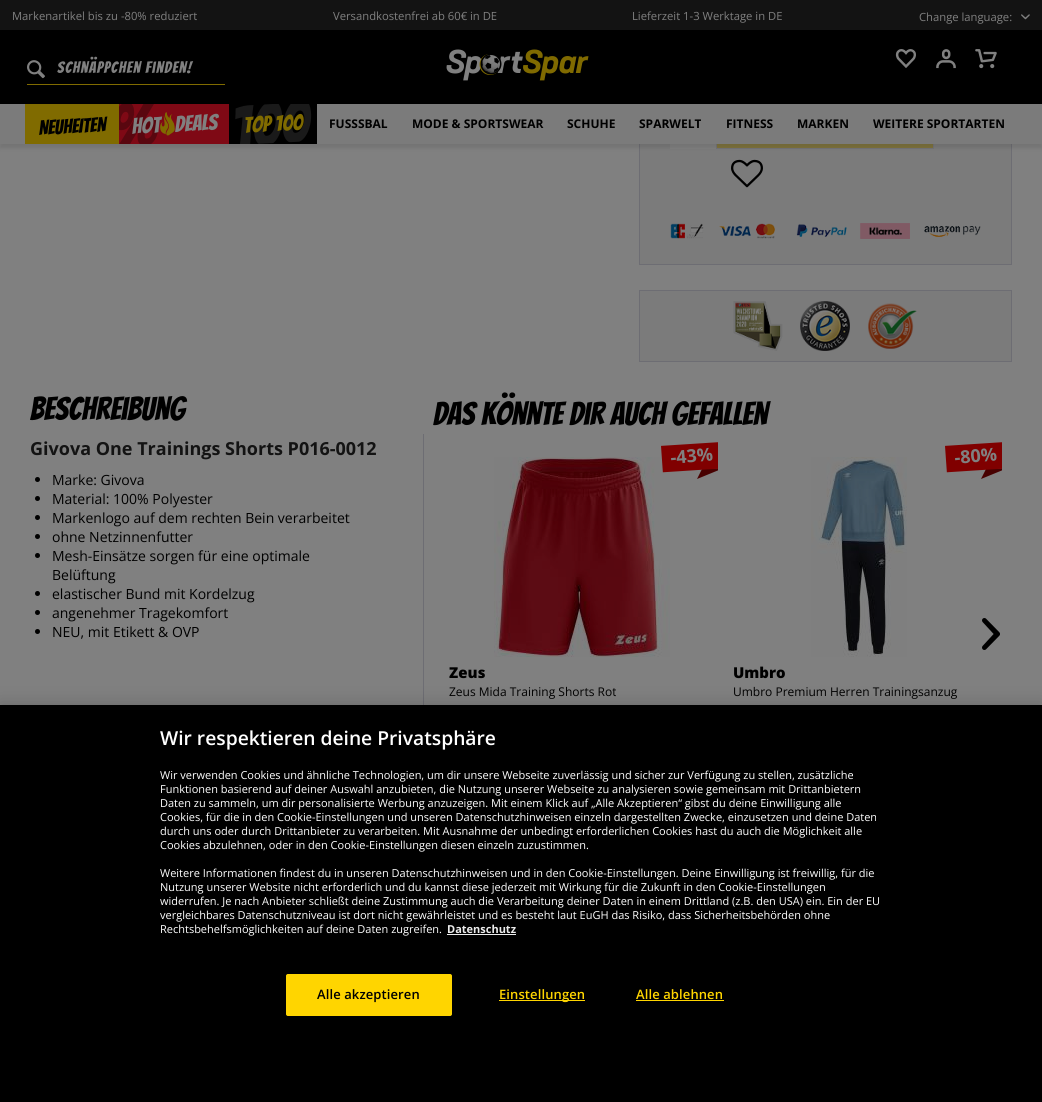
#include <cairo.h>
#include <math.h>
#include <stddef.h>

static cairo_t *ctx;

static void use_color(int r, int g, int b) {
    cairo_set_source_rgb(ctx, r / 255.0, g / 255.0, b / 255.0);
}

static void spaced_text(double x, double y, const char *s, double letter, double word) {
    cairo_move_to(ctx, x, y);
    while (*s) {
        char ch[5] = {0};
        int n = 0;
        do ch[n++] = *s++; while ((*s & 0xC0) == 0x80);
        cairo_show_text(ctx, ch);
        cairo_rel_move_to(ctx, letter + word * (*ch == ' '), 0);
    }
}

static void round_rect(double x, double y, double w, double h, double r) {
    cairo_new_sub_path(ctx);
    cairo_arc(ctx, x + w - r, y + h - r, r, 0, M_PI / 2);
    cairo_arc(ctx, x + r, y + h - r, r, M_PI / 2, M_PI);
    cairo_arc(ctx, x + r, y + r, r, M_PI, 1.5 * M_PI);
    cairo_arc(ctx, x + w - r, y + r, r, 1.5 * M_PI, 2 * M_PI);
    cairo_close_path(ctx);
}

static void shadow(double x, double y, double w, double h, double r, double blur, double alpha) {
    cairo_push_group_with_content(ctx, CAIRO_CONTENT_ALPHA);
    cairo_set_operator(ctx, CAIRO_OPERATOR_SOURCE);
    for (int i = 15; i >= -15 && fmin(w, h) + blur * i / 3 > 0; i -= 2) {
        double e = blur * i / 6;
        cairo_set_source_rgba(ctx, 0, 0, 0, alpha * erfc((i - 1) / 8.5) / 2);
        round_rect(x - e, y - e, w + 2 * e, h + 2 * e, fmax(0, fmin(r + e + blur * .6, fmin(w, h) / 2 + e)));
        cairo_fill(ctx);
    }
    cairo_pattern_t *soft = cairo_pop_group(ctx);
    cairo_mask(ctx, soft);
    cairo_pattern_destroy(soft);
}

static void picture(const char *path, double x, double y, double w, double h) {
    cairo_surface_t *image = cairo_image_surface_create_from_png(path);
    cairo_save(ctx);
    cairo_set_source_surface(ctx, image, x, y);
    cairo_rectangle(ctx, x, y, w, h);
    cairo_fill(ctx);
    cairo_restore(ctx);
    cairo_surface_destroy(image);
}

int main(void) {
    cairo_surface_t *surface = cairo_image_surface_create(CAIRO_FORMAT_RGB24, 1042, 1102);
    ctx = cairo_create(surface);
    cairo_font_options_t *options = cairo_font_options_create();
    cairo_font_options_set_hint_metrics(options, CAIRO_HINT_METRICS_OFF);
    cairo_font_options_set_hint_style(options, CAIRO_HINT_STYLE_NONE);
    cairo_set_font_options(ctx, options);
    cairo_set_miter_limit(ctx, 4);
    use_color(128, 128, 128);
    cairo_paint(ctx);
    cairo_rectangle(ctx, 639.5, -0.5, 372, 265);
    use_color(109, 109, 115);
    cairo_set_line_width(ctx, 1);
    cairo_stroke(ctx);
    use_color(123, 123, 123);
    cairo_rectangle(ctx, 640, 144, 371, 120);
    cairo_fill(ctx);
    use_color(128, 128, 128);
    cairo_rectangle(ctx, 670, 144, 46, 5);
    cairo_fill(ctx);
    use_color(126, 115, 62);
    cairo_rectangle(ctx, 717, 144, 216, 4);
    cairo_fill(ctx);
    cairo_rectangle(ctx, 716.5, 99.5, 217, 49);
    use_color(116, 116, 119);
    cairo_stroke(ctx);
    use_color(0, 0, 0);
    shadow(0, 108, 1042, 40, 0, 2, 0.1);
    use_color(0, 0, 0);
    cairo_rectangle(ctx, 0, 30, 1042, 74);
    cairo_fill(ctx);
    use_color(19, 19, 19);
    cairo_rectangle(ctx, 0, 0, 1042, 30);
    cairo_fill(ctx);
    cairo_select_font_face(ctx, "Open Sans", CAIRO_FONT_SLANT_NORMAL, CAIRO_FONT_WEIGHT_NORMAL);
    cairo_set_font_size(ctx, 11.25);
    use_color(128, 128, 128);
    cairo_move_to(ctx, 12, 20);
    cairo_show_text(ctx, "Markenartikel bis zu -80% reduziert");
    cairo_move_to(ctx, 333, 20);
    cairo_show_text(ctx, "Versandkostenfrei ab 60€ in DE");
    cairo_move_to(ctx, 632, 20);
    cairo_show_text(ctx, "Lieferzeit 1-3 Werktage in DE");
    cairo_move_to(ctx, 919, 21);
    cairo_show_text(ctx, "Change language:");
    picture("img1.png", 1021, 14, 9, 6);
    picture("img2.png", 27, 60, 18, 19);
    use_color(128, 107, 0);
    cairo_rectangle(ctx, 27, 84, 198, 1);
    cairo_fill(ctx);
    cairo_select_font_face(ctx, "Bangers", CAIRO_FONT_SLANT_NORMAL, CAIRO_FONT_WEIGHT_NORMAL);
    cairo_set_font_size(ctx, 16);
    use_color(128, 128, 128);
    spaced_text(57, 73, "Schnäppchen finden!", 1, 0);
    picture("img3.png", 446, 49, 143, 32);
    picture("img4.png", 895, 49, 21, 19);
    picture("img5.png", 936, 49, 20, 20);
    picture("img6.png", 975, 49, 22, 20);
    use_color(123, 123, 123);
    cairo_rectangle(ctx, 0, 104, 1042, 40);
    cairo_fill(ctx);
    use_color(128, 107, 0);
    cairo_rectangle(ctx, 25, 104, 94, 40);
    cairo_fill(ctx);
    cairo_set_font_size(ctx, 20);
    use_color(0, 0, 0);
    cairo_save(ctx);
    cairo_translate(ctx, 39, 135);
    cairo_rotate(ctx, -3 * M_PI / 180);
    cairo_move_to(ctx, 0, 0);
    cairo_show_text(ctx, "NEUHEITEN");
    cairo_restore(ctx);
    use_color(127, 9, 21);
    cairo_rectangle(ctx, 119, 104, 110, 40);
    cairo_fill(ctx);
    cairo_save(ctx);
    cairo_rectangle(ctx, 119, 104, 110, 40);
    cairo_clip(ctx);
    cairo_set_font_size(ctx, 60);
    use_color(89, 7, 15);
    cairo_save(ctx);
    cairo_translate(ctx, 110, 149);
    cairo_rotate(ctx, -3 * M_PI / 180);
    cairo_move_to(ctx, 0, 0);
    cairo_show_text(ctx, "%");
    cairo_restore(ctx);
    cairo_restore(ctx);
    cairo_set_font_size(ctx, 22);
    use_color(128, 128, 128);
    cairo_save(ctx);
    cairo_translate(ctx, 132, 134);
    cairo_rotate(ctx, -3 * M_PI / 180);
    cairo_move_to(ctx, 0, 0);
    cairo_show_text(ctx, "HOT");
    cairo_restore(ctx);
    picture("img7.png", 160, 112, 15, 24);
    cairo_save(ctx);
    cairo_translate(ctx, 175, 132);
    cairo_rotate(ctx, -3 * M_PI / 180);
    cairo_move_to(ctx, 0, 0);
    cairo_show_text(ctx, "DEALS");
    cairo_restore(ctx);
    use_color(0, 0, 0);
    cairo_rectangle(ctx, 229, 104, 88, 40);
    cairo_fill(ctx);
    picture("img8.png", 235, 104, 77, 40);
    use_color(128, 107, 0);
    cairo_save(ctx);
    cairo_translate(ctx, 244, 133);
    cairo_rotate(ctx, -3 * M_PI / 180);
    cairo_move_to(ctx, 0, 0);
    cairo_show_text(ctx, "TOP 100");
    cairo_restore(ctx);
    cairo_select_font_face(ctx, "Open Sans", CAIRO_FONT_SLANT_NORMAL, CAIRO_FONT_WEIGHT_BOLD);
    cairo_set_font_size(ctx, 12);
    use_color(0, 0, 0);
    cairo_move_to(ctx, 329, 128);
    cairo_show_text(ctx, "FUSSSBAL");
    cairo_move_to(ctx, 412, 128);
    cairo_show_text(ctx, "MODE & SPORTSWEAR");
    cairo_move_to(ctx, 567, 128);
    cairo_show_text(ctx, "SCHUHE");
    cairo_move_to(ctx, 639, 128);
    cairo_show_text(ctx, "SPARWELT");
    cairo_move_to(ctx, 726, 128);
    cairo_show_text(ctx, "FITNESS");
    cairo_move_to(ctx, 797, 128);
    cairo_show_text(ctx, "MARKEN");
    cairo_move_to(ctx, 873, 128);
    cairo_show_text(ctx, "WEITERE SPORTARTEN");
    picture("img9.png", 731, 159, 32, 29);
    picture("img10.png", 670, 223, 311, 16);
    use_color(123, 123, 123);
    cairo_rectangle(ctx, 639.5, 290.5, 372, 71);
    cairo_fill_preserve(ctx);
    use_color(109, 109, 115);
    cairo_stroke(ctx);
    picture("img11.png", 733, 301, 50, 50);
    picture("img12.png", 800, 301, 50, 50);
    picture("img13.png", 868, 303, 49, 46);
    cairo_select_font_face(ctx, "Bangers", CAIRO_FONT_SLANT_NORMAL, CAIRO_FONT_WEIGHT_NORMAL);
    cairo_set_font_size(ctx, 32);
    use_color(0, 0, 0);
    cairo_move_to(ctx, 30, 420);
    cairo_show_text(ctx, "Beschreibung");
    cairo_select_font_face(ctx, "Open Sans", CAIRO_FONT_SLANT_NORMAL, CAIRO_FONT_WEIGHT_BOLD);
    cairo_set_font_size(ctx, 18);
    use_color(19, 19, 19);
    cairo_move_to(ctx, 30, 455);
    cairo_show_text(ctx, "Givova One Trainings Shorts P016-0012");
    use_color(0, 0, 0);
    cairo_new_path(ctx);
    cairo_arc(ctx, 37.5, 479.5, 2.5, 0, 2 * M_PI);
    cairo_fill(ctx);
    cairo_select_font_face(ctx, "Open Sans", CAIRO_FONT_SLANT_NORMAL, CAIRO_FONT_WEIGHT_NORMAL);
    cairo_set_font_size(ctx, 14);
    cairo_move_to(ctx, 52, 485);
    cairo_show_text(ctx, "Marke: Givova");
    cairo_new_path(ctx);
    cairo_arc(ctx, 37.5, 498.5, 2.5, 0, 2 * M_PI);
    cairo_fill(ctx);
    cairo_move_to(ctx, 52, 504);
    cairo_show_text(ctx, "Material: 100% Polyester");
    cairo_new_path(ctx);
    cairo_arc(ctx, 37.5, 517.5, 2.5, 0, 2 * M_PI);
    cairo_fill(ctx);
    cairo_move_to(ctx, 52, 523);
    cairo_show_text(ctx, "Markenlogo auf dem rechten Bein verarbeitet");
    cairo_new_path(ctx);
    cairo_arc(ctx, 37.5, 536.5, 2.5, 0, 2 * M_PI);
    cairo_fill(ctx);
    cairo_move_to(ctx, 52, 542);
    cairo_show_text(ctx, "ohne Netzinnenfutter");
    cairo_new_path(ctx);
    cairo_arc(ctx, 37.5, 555.5, 2.5, 0, 2 * M_PI);
    cairo_fill(ctx);
    cairo_move_to(ctx, 52, 561);
    cairo_show_text(ctx, "Mesh-Einsätze sorgen für eine optimale");
    cairo_move_to(ctx, 52, 580);
    cairo_show_text(ctx, "Belüftung");
    cairo_new_path(ctx);
    cairo_arc(ctx, 37.5, 593.5, 2.5, 0, 2 * M_PI);
    cairo_fill(ctx);
    cairo_move_to(ctx, 52, 599);
    cairo_show_text(ctx, "elastischer Bund mit Kordelzug");
    cairo_new_path(ctx);
    cairo_arc(ctx, 37.5, 612.5, 2.5, 0, 2 * M_PI);
    cairo_fill(ctx);
    cairo_move_to(ctx, 52, 618);
    cairo_show_text(ctx, "angenehmer Tragekomfort");
    cairo_new_path(ctx);
    cairo_arc(ctx, 37.5, 631.5, 2.5, 0, 2 * M_PI);
    cairo_fill(ctx);
    cairo_move_to(ctx, 52, 637);
    cairo_show_text(ctx, "NEU, mit Etikett & OVP");
    use_color(109, 109, 115);
    cairo_rectangle(ctx, 423, 432, 1, 273);
    cairo_fill(ctx);
    use_color(128, 128, 128);
    cairo_rectangle(ctx, 423, 432, 1, 2);
    cairo_fill(ctx);
    cairo_select_font_face(ctx, "Bangers", CAIRO_FONT_SLANT_NORMAL, CAIRO_FONT_WEIGHT_NORMAL);
    cairo_set_font_size(ctx, 32);
    use_color(0, 0, 0);
    cairo_move_to(ctx, 433, 425);
    cairo_show_text(ctx, "Das könnte dir auch gefallen");
    picture("img15.png", 494, 457, 176, 200);
    picture("img14.png", 661, 442, 57, 37);
    cairo_select_font_face(ctx, "Open Sans", CAIRO_FONT_SLANT_NORMAL, CAIRO_FONT_WEIGHT_BOLD);
    cairo_set_font_size(ctx, 18);
    use_color(128, 128, 128);
    cairo_save(ctx);
    cairo_translate(ctx, 671, 464);
    cairo_rotate(ctx, -5 * M_PI / 180);
    cairo_move_to(ctx, 0, 0);
    cairo_show_text(ctx, "-43%");
    cairo_restore(ctx);
    cairo_select_font_face(ctx, "Open Sans ExtraBold", CAIRO_FONT_SLANT_NORMAL, CAIRO_FONT_WEIGHT_NORMAL);
    cairo_set_font_size(ctx, 15);
    use_color(0, 0, 0);
    cairo_move_to(ctx, 449, 678);
    cairo_show_text(ctx, "Zeus");
    cairo_select_font_face(ctx, "Open Sans", CAIRO_FONT_SLANT_NORMAL, CAIRO_FONT_WEIGHT_NORMAL);
    cairo_set_font_size(ctx, 12);
    cairo_move_to(ctx, 449, 696);
    cairo_show_text(ctx, "Zeus Mida Training Shorts Rot");
    picture("img16.png", 945, 442, 57, 37);
    picture("img17.png", 811, 457, 96, 200);
    cairo_select_font_face(ctx, "Open Sans", CAIRO_FONT_SLANT_NORMAL, CAIRO_FONT_WEIGHT_BOLD);
    cairo_set_font_size(ctx, 18);
    use_color(128, 128, 128);
    cairo_save(ctx);
    cairo_translate(ctx, 955, 464);
    cairo_rotate(ctx, -5 * M_PI / 180);
    cairo_move_to(ctx, 0, 0);
    cairo_show_text(ctx, "-80%");
    cairo_restore(ctx);
    cairo_select_font_face(ctx, "Open Sans ExtraBold", CAIRO_FONT_SLANT_NORMAL, CAIRO_FONT_WEIGHT_NORMAL);
    cairo_set_font_size(ctx, 15);
    use_color(0, 0, 0);
    cairo_move_to(ctx, 733, 678);
    cairo_show_text(ctx, "Umbro");
    cairo_select_font_face(ctx, "Open Sans", CAIRO_FONT_SLANT_NORMAL, CAIRO_FONT_WEIGHT_NORMAL);
    cairo_set_font_size(ctx, 12);
    cairo_move_to(ctx, 733, 696);
    cairo_show_text(ctx, "Umbro Premium Herren Trainingsanzug");
    picture("img18.png", 982, 618, 18, 32);
    use_color(0, 0, 0);
    shadow(0, 705, 1042, 397, 0, 9, 0.2);
    use_color(0, 0, 0);
    cairo_rectangle(ctx, 0, 705, 1042, 397);
    cairo_fill(ctx);
    cairo_select_font_face(ctx, "Open Sans SemiBold", CAIRO_FONT_SLANT_NORMAL, CAIRO_FONT_WEIGHT_NORMAL);
    cairo_set_font_size(ctx, 19.25);
    use_color(255, 255, 255);
    cairo_move_to(ctx, 160, 745);
    cairo_show_text(ctx, "Wir respektieren deine Privatsphäre");
    cairo_select_font_face(ctx, "Open Sans", CAIRO_FONT_SLANT_NORMAL, CAIRO_FONT_WEIGHT_NORMAL);
    cairo_set_font_size(ctx, 11);
    cairo_move_to(ctx, 160, 779);
    cairo_show_text(ctx, "Wir verwenden Cookies und ähnliche Technologien, um dir unsere Webseite zuverlässig und sicher zur Verfügung zu stellen, zusätzliche");
    cairo_move_to(ctx, 160, 793);
    cairo_show_text(ctx, "Funktionen basierend auf deiner Auswahl anzubieten, die Nutzung unserer Webseite zu analysieren sowie gemeinsam mit Drittanbietern");
    cairo_move_to(ctx, 160, 807);
    cairo_show_text(ctx, "Daten zu sammeln, um dir personalisierte Werbung anzuzeigen. Mit einem Klick auf „Alle Akzeptieren“ gibst du deine Einwilligung alle");
    cairo_move_to(ctx, 160, 821);
    cairo_show_text(ctx, "Cookies, für die in den Cookie-Einstellungen und unseren Datenschutzhinweisen einzeln dargestellten Zwecke, einzusetzen und deine Daten");
    cairo_move_to(ctx, 160, 835);
    cairo_show_text(ctx, "durch uns oder durch Drittanbieter zu verarbeiten. Mit Ausnahme der unbedingt erforderlichen Cookies hast du auch die Möglichkeit alle");
    cairo_move_to(ctx, 160, 849);
    cairo_show_text(ctx, "Cookies abzulehnen, oder in den Cookie-Einstellungen diesen einzeln zuzustimmen.");
    cairo_move_to(ctx, 160, 877);
    cairo_show_text(ctx, "Weitere Informationen findest du in unseren Datenschutzhinweisen und in den Cookie-Einstellungen. Deine Einwilligung ist freiwillig, für die");
    cairo_move_to(ctx, 160, 891);
    cairo_show_text(ctx, "Nutzung unserer Website nicht erforderlich und du kannst diese jederzeit mit Wirkung für die Zukunft in den Cookie-Einstellungen");
    cairo_move_to(ctx, 160, 905);
    cairo_show_text(ctx, "widerrufen. Je nach Anbieter schließt deine Zustimmung auch die Verarbeitung deiner Daten in einem Drittland (z.B. den USA) ein. Ein der EU");
    cairo_move_to(ctx, 160, 919);
    cairo_show_text(ctx, "vergleichbares Datenschutzniveau ist dort nicht gewährleistet und es besteht laut EuGH das Risiko, dass Sicherheitsbehörden ohne");
    cairo_move_to(ctx, 160, 933);
    cairo_show_text(ctx, "Rechtsbehelfsmöglichkeiten auf deine Daten zugreifen.");
    cairo_select_font_face(ctx, "Open Sans", CAIRO_FONT_SLANT_NORMAL, CAIRO_FONT_WEIGHT_BOLD);
    use_color(237, 237, 237);
    cairo_move_to(ctx, 447, 933);
    cairo_show_text(ctx, "Datenschutz");
    cairo_rectangle(ctx, 447, 934, 69, 1);
    cairo_fill(ctx);
    use_color(255, 213, 0);
    round_rect(286.5, 974.5, 165, 41, 1.5);
    cairo_fill_preserve(ctx);
    cairo_stroke(ctx);
    cairo_select_font_face(ctx, "Open Sans SemiBold", CAIRO_FONT_SLANT_NORMAL, CAIRO_FONT_WEIGHT_NORMAL);
    cairo_set_font_size(ctx, 13);
    use_color(0, 0, 0);
    spaced_text(317, 999, "Alle akzeptieren", 0.1, 0);
    use_color(255, 213, 0);
    cairo_rectangle(ctx, 499, 1000, 86, 1);
    cairo_fill(ctx);
    spaced_text(499, 999, "Einstellungen", 0.1, 0);
    spaced_text(636, 999, "Alle ablehnen", 0.1, 0);
    cairo_rectangle(ctx, 636, 1000, 88, 1);
    cairo_fill(ctx);
    cairo_surface_write_to_png(surface, "result.png");
    cairo_font_options_destroy(options);
    cairo_destroy(ctx);
    cairo_surface_destroy(surface);
    return 0;
}
